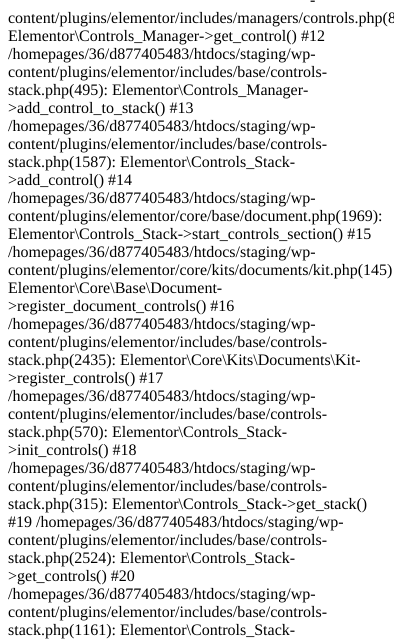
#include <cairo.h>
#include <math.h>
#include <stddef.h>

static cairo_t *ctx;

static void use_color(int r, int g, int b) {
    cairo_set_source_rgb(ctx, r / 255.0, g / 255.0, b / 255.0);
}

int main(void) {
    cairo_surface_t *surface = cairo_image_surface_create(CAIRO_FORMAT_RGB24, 394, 643);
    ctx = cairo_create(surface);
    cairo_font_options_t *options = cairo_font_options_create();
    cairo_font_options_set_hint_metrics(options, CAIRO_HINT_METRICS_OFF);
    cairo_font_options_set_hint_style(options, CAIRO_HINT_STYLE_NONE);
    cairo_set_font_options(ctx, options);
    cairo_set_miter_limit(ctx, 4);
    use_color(255, 255, 255);
    cairo_paint(ctx);
    cairo_select_font_face(ctx, "Liberation Serif", CAIRO_FONT_SLANT_NORMAL, CAIRO_FONT_WEIGHT_NORMAL);
    cairo_set_font_size(ctx, 16);
    use_color(0, 0, 0);
    cairo_move_to(ctx, 310, 5);
    cairo_show_text(ctx, "-");
    cairo_move_to(ctx, 8, 23);
    cairo_show_text(ctx, "content/plugins/elementor/includes/managers/controls.php(8");
    cairo_move_to(ctx, 8, 41);
    cairo_show_text(ctx, "Elementor\\Controls_Manager->get_control() #12");
    cairo_move_to(ctx, 8, 59);
    cairo_show_text(ctx, "/homepages/36/d877405483/htdocs/staging/wp-");
    cairo_move_to(ctx, 8, 77);
    cairo_show_text(ctx, "content/plugins/elementor/includes/base/controls-");
    cairo_move_to(ctx, 8, 95);
    cairo_show_text(ctx, "stack.php(495): Elementor\\Controls_Manager-");
    cairo_move_to(ctx, 8, 113);
    cairo_show_text(ctx, ">add_control_to_stack() #13");
    cairo_move_to(ctx, 8, 131);
    cairo_show_text(ctx, "/homepages/36/d877405483/htdocs/staging/wp-");
    cairo_move_to(ctx, 8, 149);
    cairo_show_text(ctx, "content/plugins/elementor/includes/base/controls-");
    cairo_move_to(ctx, 8, 167);
    cairo_show_text(ctx, "stack.php(1587): Elementor\\Controls_Stack-");
    cairo_move_to(ctx, 8, 185);
    cairo_show_text(ctx, ">add_control() #14");
    cairo_move_to(ctx, 8, 203);
    cairo_show_text(ctx, "/homepages/36/d877405483/htdocs/staging/wp-");
    cairo_move_to(ctx, 8, 221);
    cairo_show_text(ctx, "content/plugins/elementor/core/base/document.php(1969):");
    cairo_move_to(ctx, 8, 239);
    cairo_show_text(ctx, "Elementor\\Controls_Stack->start_controls_section() #15");
    cairo_move_to(ctx, 8, 257);
    cairo_show_text(ctx, "/homepages/36/d877405483/htdocs/staging/wp-");
    cairo_move_to(ctx, 8, 275);
    cairo_show_text(ctx, "content/plugins/elementor/core/kits/documents/kit.php(145)");
    cairo_move_to(ctx, 8, 293);
    cairo_show_text(ctx, "Elementor\\Core\\Base\\Document-");
    cairo_move_to(ctx, 8, 311);
    cairo_show_text(ctx, ">register_document_controls() #16");
    cairo_move_to(ctx, 8, 329);
    cairo_show_text(ctx, "/homepages/36/d877405483/htdocs/staging/wp-");
    cairo_move_to(ctx, 8, 347);
    cairo_show_text(ctx, "content/plugins/elementor/includes/base/controls-");
    cairo_move_to(ctx, 8, 365);
    cairo_show_text(ctx, "stack.php(2435): Elementor\\Core\\Kits\\Documents\\Kit-");
    cairo_move_to(ctx, 8, 383);
    cairo_show_text(ctx, ">register_controls() #17");
    cairo_move_to(ctx, 8, 401);
    cairo_show_text(ctx, "/homepages/36/d877405483/htdocs/staging/wp-");
    cairo_move_to(ctx, 8, 419);
    cairo_show_text(ctx, "content/plugins/elementor/includes/base/controls-");
    cairo_move_to(ctx, 8, 437);
    cairo_show_text(ctx, "stack.php(570): Elementor\\Controls_Stack-");
    cairo_move_to(ctx, 8, 455);
    cairo_show_text(ctx, ">init_controls() #18");
    cairo_move_to(ctx, 8, 473);
    cairo_show_text(ctx, "/homepages/36/d877405483/htdocs/staging/wp-");
    cairo_move_to(ctx, 8, 491);
    cairo_show_text(ctx, "content/plugins/elementor/includes/base/controls-");
    cairo_move_to(ctx, 8, 509);
    cairo_show_text(ctx, "stack.php(315): Elementor\\Controls_Stack->get_stack()");
    cairo_move_to(ctx, 8, 527);
    cairo_show_text(ctx, "#19 /homepages/36/d877405483/htdocs/staging/wp-");
    cairo_move_to(ctx, 8, 545);
    cairo_show_text(ctx, "content/plugins/elementor/includes/base/controls-");
    cairo_move_to(ctx, 8, 563);
    cairo_show_text(ctx, "stack.php(2524): Elementor\\Controls_Stack-");
    cairo_move_to(ctx, 8, 581);
    cairo_show_text(ctx, ">get_controls() #20");
    cairo_move_to(ctx, 8, 599);
    cairo_show_text(ctx, "/homepages/36/d877405483/htdocs/staging/wp-");
    cairo_move_to(ctx, 8, 617);
    cairo_show_text(ctx, "content/plugins/elementor/includes/base/controls-");
    cairo_move_to(ctx, 8, 635);
    cairo_show_text(ctx, "stack.php(1161): Elementor\\Controls_Stack-");
    cairo_surface_write_to_png(surface, "result.png");
    cairo_font_options_destroy(options);
    cairo_destroy(ctx);
    cairo_surface_destroy(surface);
    return 0;
}
